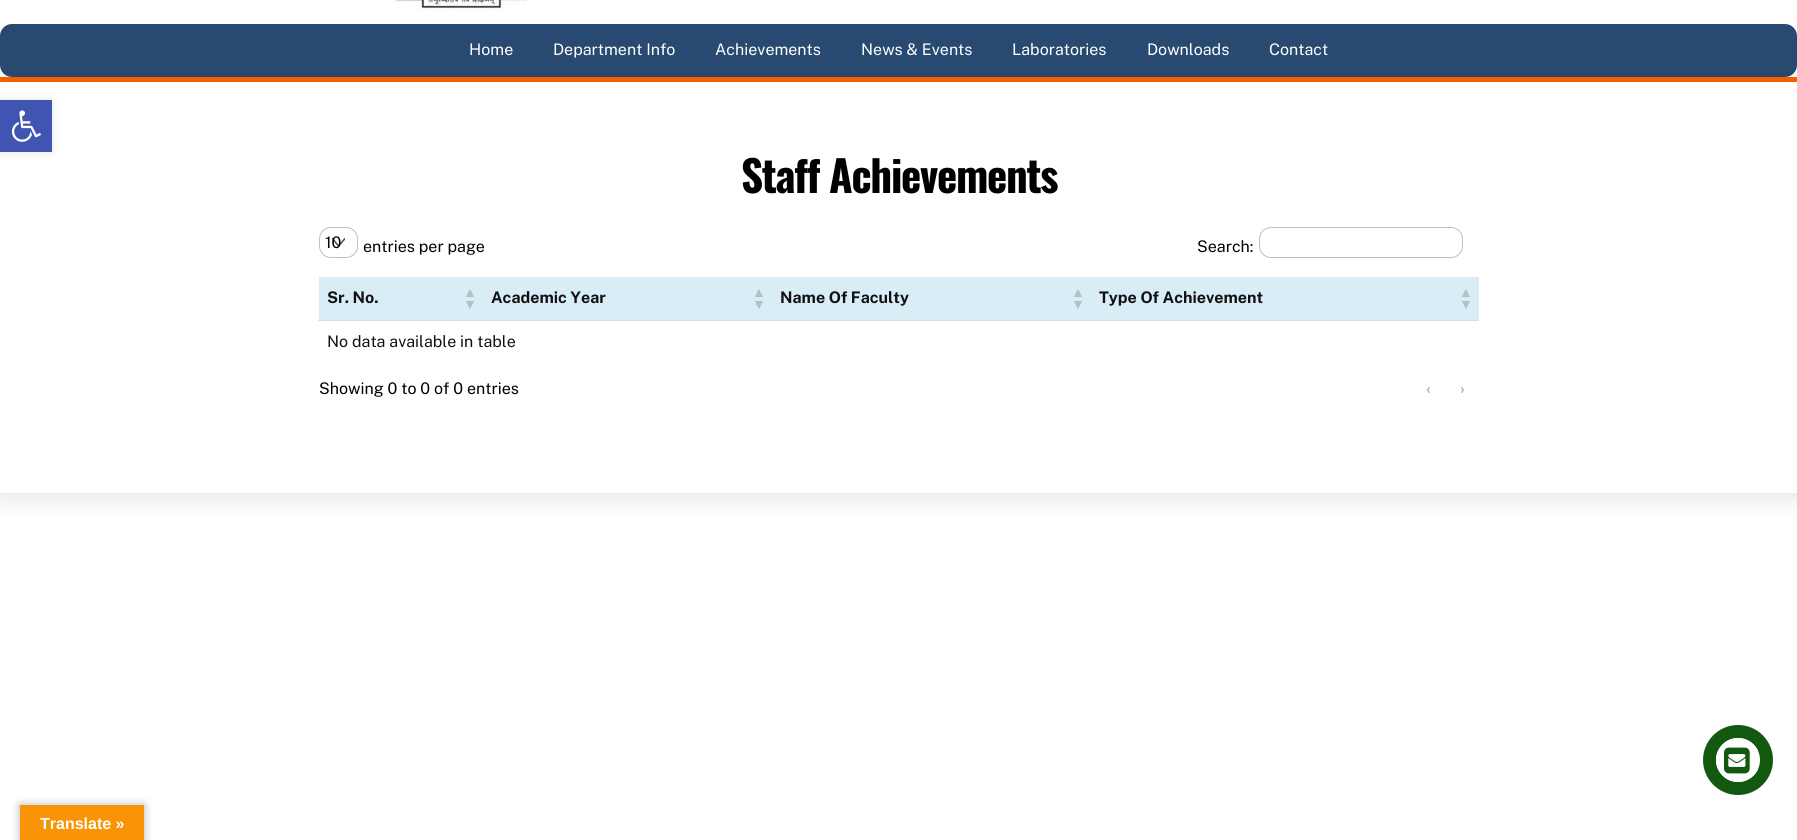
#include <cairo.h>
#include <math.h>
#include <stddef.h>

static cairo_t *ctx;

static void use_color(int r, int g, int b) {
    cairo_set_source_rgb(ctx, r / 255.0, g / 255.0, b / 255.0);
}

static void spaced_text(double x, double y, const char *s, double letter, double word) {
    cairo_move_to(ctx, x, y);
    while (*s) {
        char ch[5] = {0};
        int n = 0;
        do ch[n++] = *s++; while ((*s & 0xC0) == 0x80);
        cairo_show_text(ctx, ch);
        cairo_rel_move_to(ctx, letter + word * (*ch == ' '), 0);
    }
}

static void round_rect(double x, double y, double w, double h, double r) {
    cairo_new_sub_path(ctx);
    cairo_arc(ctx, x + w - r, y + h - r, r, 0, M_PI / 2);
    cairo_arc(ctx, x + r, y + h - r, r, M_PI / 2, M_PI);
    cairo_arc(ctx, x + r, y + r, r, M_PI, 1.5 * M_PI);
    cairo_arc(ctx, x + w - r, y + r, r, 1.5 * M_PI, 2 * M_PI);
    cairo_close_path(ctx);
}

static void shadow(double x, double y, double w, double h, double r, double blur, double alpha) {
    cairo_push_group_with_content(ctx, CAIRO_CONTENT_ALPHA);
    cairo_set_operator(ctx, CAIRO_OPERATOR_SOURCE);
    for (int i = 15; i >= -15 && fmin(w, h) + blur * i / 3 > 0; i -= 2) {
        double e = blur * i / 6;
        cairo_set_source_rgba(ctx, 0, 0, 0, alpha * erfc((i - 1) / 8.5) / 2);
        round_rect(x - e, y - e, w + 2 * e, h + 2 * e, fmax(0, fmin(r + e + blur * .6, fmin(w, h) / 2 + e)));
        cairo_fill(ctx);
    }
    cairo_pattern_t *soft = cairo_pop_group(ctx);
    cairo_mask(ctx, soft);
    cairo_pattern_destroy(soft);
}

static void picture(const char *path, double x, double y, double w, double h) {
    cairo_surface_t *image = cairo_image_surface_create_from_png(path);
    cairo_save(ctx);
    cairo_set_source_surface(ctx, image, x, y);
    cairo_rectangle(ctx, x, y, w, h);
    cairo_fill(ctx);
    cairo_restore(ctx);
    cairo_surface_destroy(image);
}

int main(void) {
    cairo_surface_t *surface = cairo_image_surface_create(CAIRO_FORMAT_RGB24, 1797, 840);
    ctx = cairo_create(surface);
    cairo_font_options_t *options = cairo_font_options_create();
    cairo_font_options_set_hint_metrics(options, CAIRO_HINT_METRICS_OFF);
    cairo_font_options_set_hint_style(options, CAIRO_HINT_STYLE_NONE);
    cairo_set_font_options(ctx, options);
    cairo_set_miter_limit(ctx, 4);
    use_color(255, 255, 255);
    cairo_paint(ctx);
    use_color(0, 0, 0);
    shadow(0, 100, 52, 52, 0, 5, 0.1);
    use_color(254, 101, 0);
    cairo_rectangle(ctx, 0, 77, 1797, 5);
    cairo_fill(ctx);
    use_color(41, 74, 112);
    round_rect(0, 24, 1797, 53, 12);
    cairo_fill(ctx);
    cairo_save(ctx);
    cairo_set_fill_rule(ctx, CAIRO_FILL_RULE_EVEN_ODD);
    cairo_new_path(ctx);
    cairo_move_to(ctx, 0, 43);
    cairo_line_to(ctx, 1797, 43);
    cairo_line_to(ctx, 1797, 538);
    cairo_line_to(ctx, 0, 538);
    cairo_close_path(ctx);
    cairo_move_to(ctx, 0, 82);
    cairo_line_to(ctx, 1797, 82);
    cairo_line_to(ctx, 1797, 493);
    cairo_line_to(ctx, 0, 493);
    cairo_close_path(ctx);
    cairo_clip(ctx);
    use_color(0, 0, 0);
    shadow(-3, 82, 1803, 417, 0, 12.5, 0.1);
    cairo_restore(ctx);
    use_color(64, 84, 178);
    cairo_rectangle(ctx, 0, 100, 52, 52);
    cairo_fill(ctx);
    picture("img1.png", 11, 110, 30, 32);
    picture("img2.png", 393, 0, 135, 19);
    cairo_select_font_face(ctx, "Public Sans", CAIRO_FONT_SLANT_NORMAL, CAIRO_FONT_WEIGHT_NORMAL);
    cairo_set_font_size(ctx, 16);
    use_color(255, 255, 255);
    cairo_move_to(ctx, 469, 55);
    cairo_show_text(ctx, "Home");
    cairo_move_to(ctx, 553, 55);
    cairo_show_text(ctx, "Department Info");
    cairo_move_to(ctx, 715, 55);
    cairo_show_text(ctx, "Achievements");
    cairo_move_to(ctx, 861, 55);
    cairo_show_text(ctx, "News & Events");
    cairo_move_to(ctx, 1012, 55);
    cairo_show_text(ctx, "Laboratories");
    cairo_move_to(ctx, 1147, 55);
    cairo_show_text(ctx, "Downloads");
    cairo_move_to(ctx, 1269, 55);
    cairo_show_text(ctx, "Contact");
    cairo_select_font_face(ctx, "Oswald", CAIRO_FONT_SLANT_NORMAL, CAIRO_FONT_WEIGHT_BOLD);
    cairo_set_font_size(ctx, 43);
    use_color(0, 0, 0);
    spaced_text(741, 193, "Staff Achievements", -1.25, 0);
    cairo_save(ctx);
    cairo_rectangle(ctx, 332, 238, 13, 13);
    cairo_clip(ctx);
    cairo_new_path(ctx);
    cairo_move_to(ctx, 332.5, 238.5);
    cairo_line_to(ctx, 338.5, 246);
    cairo_line_to(ctx, 345, 238.5);
    use_color(83, 83, 83);
    cairo_set_line_width(ctx, 1.6);
    cairo_set_line_cap(ctx, CAIRO_LINE_CAP_ROUND);
    cairo_stroke(ctx);
    cairo_restore(ctx);
    round_rect(319.5, 227.5, 38, 30, 11.5);
    use_color(191, 191, 191);
    cairo_set_line_width(ctx, 1);
    cairo_stroke(ctx);
    cairo_select_font_face(ctx, "Public Sans", CAIRO_FONT_SLANT_NORMAL, CAIRO_FONT_WEIGHT_NORMAL);
    cairo_set_font_size(ctx, 16);
    use_color(0, 0, 0);
    cairo_move_to(ctx, 325, 248);
    cairo_show_text(ctx, "10");
    cairo_move_to(ctx, 363, 252);
    cairo_show_text(ctx, "entries per page");
    cairo_move_to(ctx, 1197, 252);
    cairo_show_text(ctx, "Search:");
    round_rect(1259.5, 227.5, 203, 30, 11.5);
    use_color(191, 191, 191);
    cairo_stroke(ctx);
    use_color(217, 237, 247);
    cairo_rectangle(ctx, 319, 277, 1160, 43);
    cairo_fill(ctx);
    cairo_select_font_face(ctx, "Public Sans", CAIRO_FONT_SLANT_NORMAL, CAIRO_FONT_WEIGHT_BOLD);
    use_color(17, 17, 17);
    cairo_move_to(ctx, 327, 303);
    cairo_show_text(ctx, "Sr. No.");
    cairo_select_font_face(ctx, "Liberation Sans", CAIRO_FONT_SLANT_NORMAL, CAIRO_FONT_WEIGHT_BOLD);
    cairo_set_font_size(ctx, 14);
    use_color(177, 193, 201);
    cairo_move_to(ctx, 463, 297);
    cairo_show_text(ctx, "▲");
    cairo_move_to(ctx, 463, 309);
    cairo_show_text(ctx, "▼");
    cairo_select_font_face(ctx, "Public Sans", CAIRO_FONT_SLANT_NORMAL, CAIRO_FONT_WEIGHT_BOLD);
    cairo_set_font_size(ctx, 16);
    use_color(17, 17, 17);
    cairo_move_to(ctx, 491, 303);
    cairo_show_text(ctx, "Academic Year");
    cairo_select_font_face(ctx, "Liberation Sans", CAIRO_FONT_SLANT_NORMAL, CAIRO_FONT_WEIGHT_BOLD);
    cairo_set_font_size(ctx, 14);
    use_color(177, 193, 201);
    cairo_move_to(ctx, 752, 297);
    cairo_show_text(ctx, "▲");
    cairo_move_to(ctx, 752, 309);
    cairo_show_text(ctx, "▼");
    cairo_select_font_face(ctx, "Public Sans", CAIRO_FONT_SLANT_NORMAL, CAIRO_FONT_WEIGHT_BOLD);
    cairo_set_font_size(ctx, 16);
    use_color(17, 17, 17);
    cairo_move_to(ctx, 780, 303);
    cairo_show_text(ctx, "Name Of Faculty");
    cairo_select_font_face(ctx, "Liberation Sans", CAIRO_FONT_SLANT_NORMAL, CAIRO_FONT_WEIGHT_BOLD);
    cairo_set_font_size(ctx, 14);
    use_color(177, 193, 201);
    cairo_move_to(ctx, 1071, 297);
    cairo_show_text(ctx, "▲");
    cairo_move_to(ctx, 1071, 309);
    cairo_show_text(ctx, "▼");
    cairo_select_font_face(ctx, "Public Sans", CAIRO_FONT_SLANT_NORMAL, CAIRO_FONT_WEIGHT_BOLD);
    cairo_set_font_size(ctx, 16);
    use_color(17, 17, 17);
    cairo_move_to(ctx, 1099, 303);
    cairo_show_text(ctx, "Type Of Achievement");
    cairo_select_font_face(ctx, "Liberation Sans", CAIRO_FONT_SLANT_NORMAL, CAIRO_FONT_WEIGHT_BOLD);
    cairo_set_font_size(ctx, 14);
    use_color(177, 193, 201);
    cairo_move_to(ctx, 1459, 297);
    cairo_show_text(ctx, "▲");
    cairo_move_to(ctx, 1459, 309);
    cairo_show_text(ctx, "▼");
    use_color(221, 221, 221);
    cairo_rectangle(ctx, 318, 320, 1161, 1);
    cairo_fill(ctx);
    cairo_select_font_face(ctx, "Public Sans", CAIRO_FONT_SLANT_NORMAL, CAIRO_FONT_WEIGHT_NORMAL);
    cairo_set_font_size(ctx, 16);
    use_color(17, 17, 17);
    cairo_move_to(ctx, 327, 347);
    cairo_show_text(ctx, "No data available in table");
    use_color(0, 0, 0);
    cairo_move_to(ctx, 319, 394);
    cairo_show_text(ctx, "Showing 0 to 0 of 0 entries");
    cairo_select_font_face(ctx, "Public Sans", CAIRO_FONT_SLANT_NORMAL, CAIRO_FONT_WEIGHT_BOLD);
    use_color(179, 179, 179);
    cairo_move_to(ctx, 1426, 394);
    cairo_show_text(ctx, "‹");
    cairo_move_to(ctx, 1460, 394);
    cairo_show_text(ctx, "›");
    use_color(18, 88, 15);
    cairo_new_path(ctx);
    cairo_arc(ctx, 1738, 760, 35, 0, 2 * M_PI);
    cairo_fill(ctx);
    use_color(255, 255, 255);
    cairo_arc(ctx, 1738, 760, 22, 0, 2 * M_PI);
    cairo_fill(ctx);
    cairo_save(ctx);
    round_rect(1716, 738, 44, 44, 22);
    cairo_clip(ctx);
    cairo_new_path(ctx);
    cairo_move_to(ctx, 1738, 738);
    cairo_line_to(ctx, 1758, 738);
    cairo_line_to(ctx, 1758, 782);
    cairo_line_to(ctx, 1738, 782);
    cairo_curve_to(ctx, 1726, 782, 1716, 772, 1716, 760);
    cairo_curve_to(ctx, 1716, 748, 1726, 738, 1738, 738);
    cairo_close_path(ctx);
    cairo_fill(ctx);
    cairo_restore(ctx);
    picture("img3.png", 1724, 747, 26, 27);
    use_color(0, 0, 0);
    shadow(20, 805, 124, 35, 0, 4.5, 0.3);
    use_color(248, 148, 6);
    cairo_rectangle(ctx, 20, 805, 124, 35);
    cairo_fill(ctx);
    cairo_select_font_face(ctx, "Liberation Sans", CAIRO_FONT_SLANT_NORMAL, CAIRO_FONT_WEIGHT_BOLD);
    use_color(255, 255, 255);
    cairo_move_to(ctx, 40, 829);
    cairo_show_text(ctx, "Translate »");
    cairo_surface_write_to_png(surface, "result.png");
    cairo_font_options_destroy(options);
    cairo_destroy(ctx);
    cairo_surface_destroy(surface);
    return 0;
}
